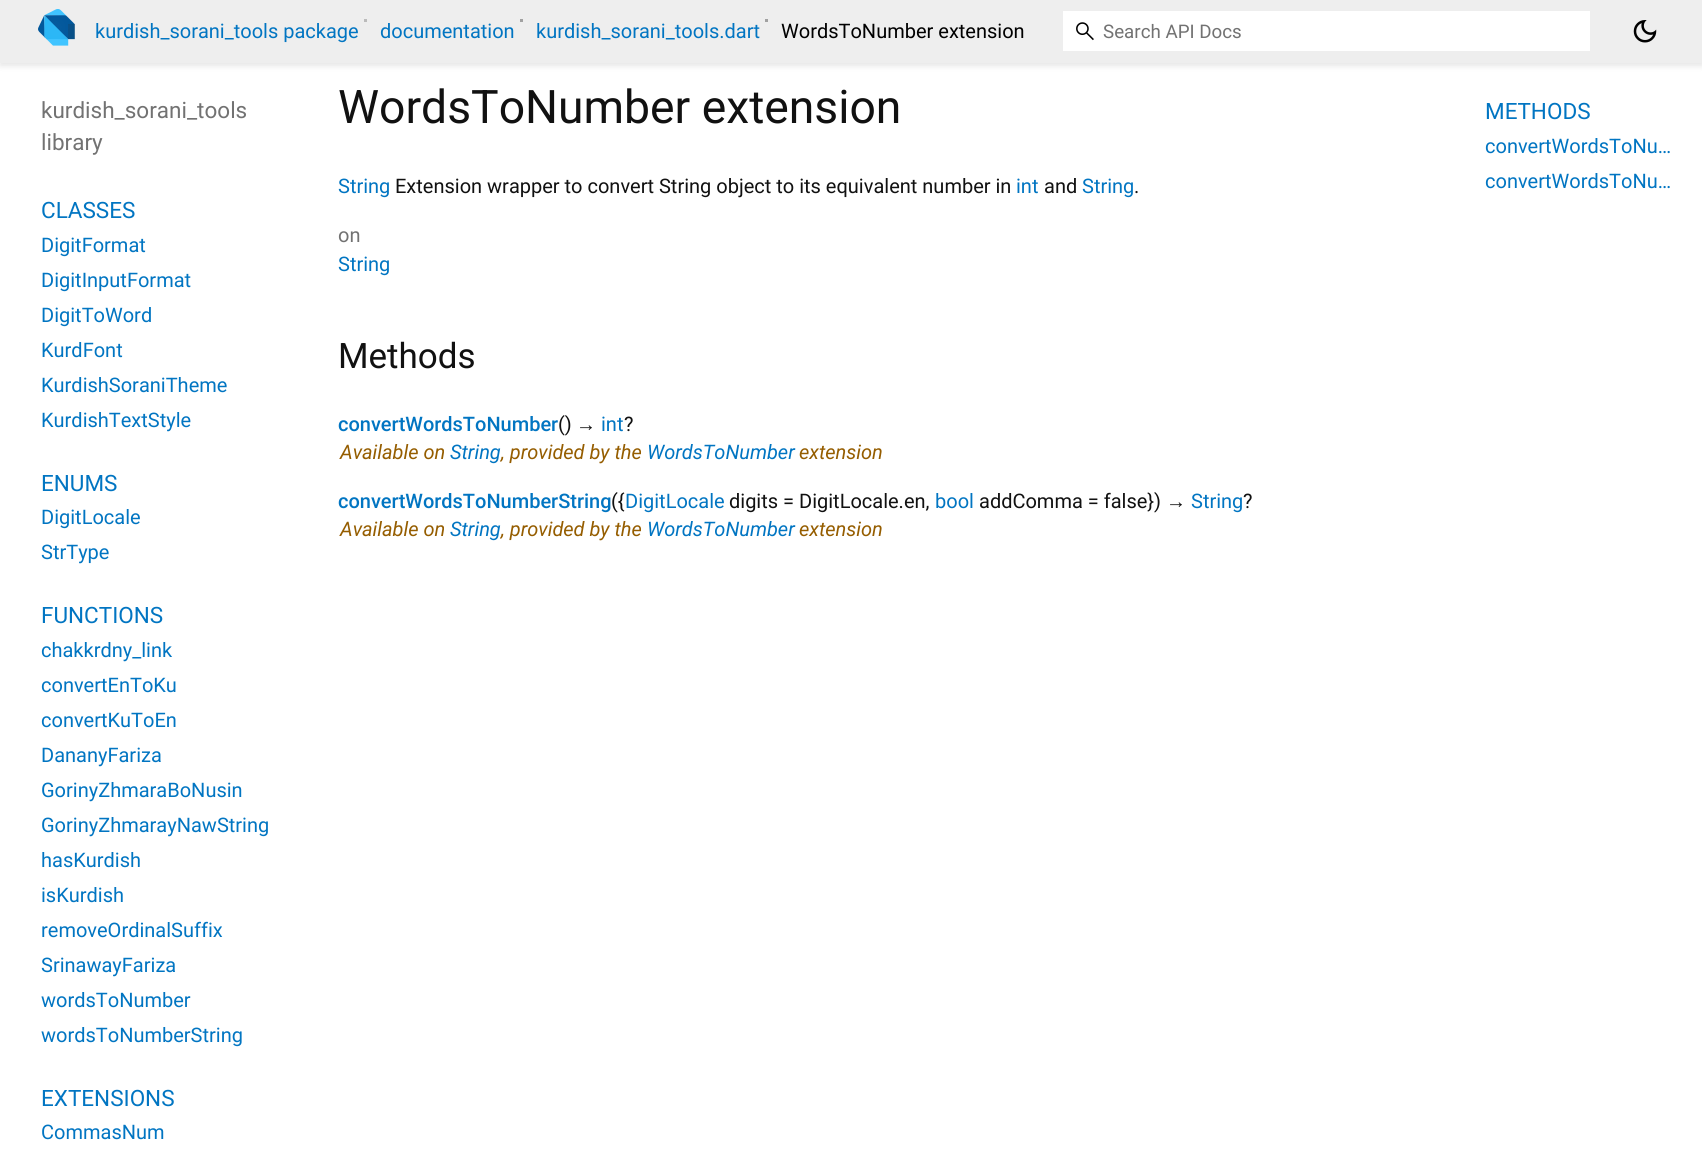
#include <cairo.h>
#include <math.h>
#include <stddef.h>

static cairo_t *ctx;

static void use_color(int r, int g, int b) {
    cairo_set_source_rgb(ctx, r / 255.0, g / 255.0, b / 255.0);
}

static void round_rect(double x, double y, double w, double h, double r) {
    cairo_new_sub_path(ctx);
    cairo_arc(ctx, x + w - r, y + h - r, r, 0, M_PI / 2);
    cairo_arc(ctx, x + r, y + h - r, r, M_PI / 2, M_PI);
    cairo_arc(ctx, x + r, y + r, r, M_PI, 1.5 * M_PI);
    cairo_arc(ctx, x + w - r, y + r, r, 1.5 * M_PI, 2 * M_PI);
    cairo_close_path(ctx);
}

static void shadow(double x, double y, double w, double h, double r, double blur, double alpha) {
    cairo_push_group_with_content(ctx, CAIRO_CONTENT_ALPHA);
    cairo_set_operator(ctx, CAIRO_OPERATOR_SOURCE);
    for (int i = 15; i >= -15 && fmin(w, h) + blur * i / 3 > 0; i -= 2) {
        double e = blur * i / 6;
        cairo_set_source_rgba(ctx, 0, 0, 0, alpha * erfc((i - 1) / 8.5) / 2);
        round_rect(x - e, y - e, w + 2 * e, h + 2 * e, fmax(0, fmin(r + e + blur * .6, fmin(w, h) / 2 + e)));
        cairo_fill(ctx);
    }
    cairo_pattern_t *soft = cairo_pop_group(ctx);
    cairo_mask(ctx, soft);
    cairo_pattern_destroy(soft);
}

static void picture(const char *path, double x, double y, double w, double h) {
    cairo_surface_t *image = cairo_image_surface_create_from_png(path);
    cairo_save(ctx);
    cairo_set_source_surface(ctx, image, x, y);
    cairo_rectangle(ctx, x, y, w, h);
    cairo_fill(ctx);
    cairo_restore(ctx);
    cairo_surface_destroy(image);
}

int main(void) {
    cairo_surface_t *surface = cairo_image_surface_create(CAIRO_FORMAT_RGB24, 1702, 1164);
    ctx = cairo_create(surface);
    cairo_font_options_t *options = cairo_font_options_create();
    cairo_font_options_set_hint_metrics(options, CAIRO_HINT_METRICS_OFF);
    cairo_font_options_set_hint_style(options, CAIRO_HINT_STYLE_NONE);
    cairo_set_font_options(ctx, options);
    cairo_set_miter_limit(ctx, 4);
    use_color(255, 255, 255);
    cairo_paint(ctx);
    use_color(0, 0, 0);
    shadow(0, 4, 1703, 62, 0, 3, 0.1);
    use_color(238, 238, 238);
    cairo_rectangle(ctx, 0, 0, 1702, 63);
    cairo_fill(ctx);
    picture("img1.png", 38, 9, 37, 37);
    cairo_select_font_face(ctx, "Roboto", CAIRO_FONT_SLANT_NORMAL, CAIRO_FONT_WEIGHT_NORMAL);
    cairo_set_font_size(ctx, 20);
    use_color(1, 117, 194);
    cairo_move_to(ctx, 95, 38);
    cairo_show_text(ctx, "kurdish_sorani_tools package");
    use_color(187, 187, 187);
    cairo_rectangle(ctx, 364, 19, 3, 3);
    cairo_fill(ctx);
    use_color(1, 117, 194);
    cairo_move_to(ctx, 380, 38);
    cairo_show_text(ctx, "documentation");
    use_color(161, 161, 161);
    cairo_rectangle(ctx, 520, 19, 3, 3);
    cairo_fill(ctx);
    use_color(1, 117, 194);
    cairo_move_to(ctx, 536, 38);
    cairo_show_text(ctx, "kurdish_sorani_tools.dart");
    use_color(161, 161, 161);
    cairo_rectangle(ctx, 765, 19, 3, 3);
    cairo_fill(ctx);
    use_color(0, 0, 0);
    cairo_move_to(ctx, 781, 38);
    cairo_show_text(ctx, "WordsToNumber extension");
    use_color(255, 255, 255);
    cairo_rectangle(ctx, 1063, 11, 527, 40);
    cairo_fill(ctx);
    picture("img2.png", 1076, 22, 18, 19);
    cairo_set_font_size(ctx, 18.75);
    use_color(114, 114, 114);
    cairo_move_to(ctx, 1103, 38);
    cairo_show_text(ctx, "Search API Docs");
    picture("img3.png", 1633, 20, 24, 23);
    cairo_set_font_size(ctx, 22.5);
    cairo_move_to(ctx, 41, 118);
    cairo_show_text(ctx, "kurdish_sorani_tools");
    cairo_move_to(ctx, 41, 150);
    cairo_show_text(ctx, "library");
    use_color(1, 117, 194);
    cairo_move_to(ctx, 41, 218);
    cairo_show_text(ctx, "CLASSES");
    cairo_set_font_size(ctx, 20);
    cairo_move_to(ctx, 41, 252);
    cairo_show_text(ctx, "DigitFormat");
    cairo_move_to(ctx, 41, 287);
    cairo_show_text(ctx, "DigitInputFormat");
    cairo_move_to(ctx, 41, 322);
    cairo_show_text(ctx, "DigitToWord");
    cairo_move_to(ctx, 41, 357);
    cairo_show_text(ctx, "KurdFont");
    cairo_move_to(ctx, 41, 392);
    cairo_show_text(ctx, "KurdishSoraniTheme");
    cairo_move_to(ctx, 41, 427);
    cairo_show_text(ctx, "KurdishTextStyle");
    cairo_set_font_size(ctx, 22.5);
    cairo_move_to(ctx, 41, 491);
    cairo_show_text(ctx, "ENUMS");
    cairo_set_font_size(ctx, 20);
    cairo_move_to(ctx, 41, 524);
    cairo_show_text(ctx, "DigitLocale");
    cairo_move_to(ctx, 41, 559);
    cairo_show_text(ctx, "StrType");
    cairo_set_font_size(ctx, 22.5);
    cairo_move_to(ctx, 41, 623);
    cairo_show_text(ctx, "FUNCTIONS");
    cairo_set_font_size(ctx, 20);
    cairo_move_to(ctx, 41, 657);
    cairo_show_text(ctx, "chakkrdny_link");
    cairo_move_to(ctx, 41, 692);
    cairo_show_text(ctx, "convertEnToKu");
    cairo_move_to(ctx, 41, 727);
    cairo_show_text(ctx, "convertKuToEn");
    cairo_move_to(ctx, 41, 762);
    cairo_show_text(ctx, "DananyFariza");
    cairo_move_to(ctx, 41, 797);
    cairo_show_text(ctx, "GorinyZhmaraBoNusin");
    cairo_move_to(ctx, 41, 832);
    cairo_show_text(ctx, "GorinyZhmarayNawString");
    cairo_move_to(ctx, 41, 867);
    cairo_show_text(ctx, "hasKurdish");
    cairo_move_to(ctx, 41, 902);
    cairo_show_text(ctx, "isKurdish");
    cairo_move_to(ctx, 41, 937);
    cairo_show_text(ctx, "removeOrdinalSuffix");
    cairo_move_to(ctx, 41, 972);
    cairo_show_text(ctx, "SrinawayFariza");
    cairo_move_to(ctx, 41, 1007);
    cairo_show_text(ctx, "wordsToNumber");
    cairo_move_to(ctx, 41, 1042);
    cairo_show_text(ctx, "wordsToNumberString");
    cairo_set_font_size(ctx, 22.5);
    cairo_move_to(ctx, 41, 1106);
    cairo_show_text(ctx, "EXTENSIONS");
    cairo_set_font_size(ctx, 20);
    cairo_move_to(ctx, 41, 1139);
    cairo_show_text(ctx, "CommasNum");
    cairo_set_font_size(ctx, 46.25);
    use_color(17, 17, 17);
    cairo_move_to(ctx, 338, 123);
    cairo_show_text(ctx, "WordsToNumber extension");
    cairo_set_font_size(ctx, 20);
    use_color(1, 117, 194);
    cairo_move_to(ctx, 338, 193);
    cairo_show_text(ctx, "String");
    use_color(17, 17, 17);
    cairo_move_to(ctx, 395, 193);
    cairo_show_text(ctx, "Extension wrapper to convert String object to its equivalent number in");
    use_color(1, 117, 194);
    cairo_move_to(ctx, 1016, 193);
    cairo_show_text(ctx, "int");
    use_color(17, 17, 17);
    cairo_move_to(ctx, 1044, 193);
    cairo_show_text(ctx, "and");
    use_color(1, 117, 194);
    cairo_move_to(ctx, 1082, 193);
    cairo_show_text(ctx, "String");
    use_color(17, 17, 17);
    cairo_move_to(ctx, 1134, 193);
    cairo_show_text(ctx, ".");
    use_color(114, 114, 114);
    cairo_move_to(ctx, 338, 242);
    cairo_show_text(ctx, "on");
    use_color(1, 117, 194);
    cairo_move_to(ctx, 338, 271);
    cairo_show_text(ctx, "String");
    cairo_set_font_size(ctx, 35);
    use_color(17, 17, 17);
    cairo_move_to(ctx, 338, 368);
    cairo_show_text(ctx, "Methods");
    cairo_select_font_face(ctx, "Roboto Medium", CAIRO_FONT_SLANT_NORMAL, CAIRO_FONT_WEIGHT_NORMAL);
    cairo_set_font_size(ctx, 20);
    use_color(1, 117, 194);
    cairo_move_to(ctx, 338, 431);
    cairo_show_text(ctx, "convertWordsToNumber");
    cairo_select_font_face(ctx, "Roboto", CAIRO_FONT_SLANT_NORMAL, CAIRO_FONT_WEIGHT_NORMAL);
    use_color(17, 17, 17);
    cairo_move_to(ctx, 558, 431);
    cairo_show_text(ctx, "()");
    cairo_select_font_face(ctx, "Liberation Sans", CAIRO_FONT_SLANT_NORMAL, CAIRO_FONT_WEIGHT_NORMAL);
    cairo_move_to(ctx, 576, 431);
    cairo_show_text(ctx, "→");
    cairo_select_font_face(ctx, "Roboto", CAIRO_FONT_SLANT_NORMAL, CAIRO_FONT_WEIGHT_NORMAL);
    use_color(1, 117, 194);
    cairo_move_to(ctx, 601, 431);
    cairo_show_text(ctx, "int");
    use_color(17, 17, 17);
    cairo_move_to(ctx, 624, 431);
    cairo_show_text(ctx, "?");
    cairo_select_font_face(ctx, "Roboto", CAIRO_FONT_SLANT_ITALIC, CAIRO_FONT_WEIGHT_NORMAL);
    use_color(149, 93, 0);
    cairo_move_to(ctx, 340, 459);
    cairo_show_text(ctx, "Available on");
    use_color(1, 117, 194);
    cairo_move_to(ctx, 450, 459);
    cairo_show_text(ctx, "String");
    use_color(149, 93, 0);
    cairo_move_to(ctx, 501, 459);
    cairo_show_text(ctx, ", provided by the");
    use_color(1, 117, 194);
    cairo_move_to(ctx, 647, 459);
    cairo_show_text(ctx, "WordsToNumber");
    use_color(149, 93, 0);
    cairo_move_to(ctx, 799, 459);
    cairo_show_text(ctx, "extension");
    cairo_select_font_face(ctx, "Roboto Medium", CAIRO_FONT_SLANT_NORMAL, CAIRO_FONT_WEIGHT_NORMAL);
    use_color(1, 117, 194);
    cairo_move_to(ctx, 338, 508);
    cairo_show_text(ctx, "convertWordsToNumberString");
    cairo_select_font_face(ctx, "Roboto", CAIRO_FONT_SLANT_NORMAL, CAIRO_FONT_WEIGHT_NORMAL);
    use_color(17, 17, 17);
    cairo_move_to(ctx, 611, 508);
    cairo_show_text(ctx, "({");
    use_color(1, 117, 194);
    cairo_move_to(ctx, 625, 508);
    cairo_show_text(ctx, "DigitLocale");
    use_color(17, 17, 17);
    cairo_move_to(ctx, 729, 508);
    cairo_show_text(ctx, "digits = DigitLocale.en,");
    use_color(1, 117, 194);
    cairo_move_to(ctx, 935, 508);
    cairo_show_text(ctx, "bool");
    use_color(17, 17, 17);
    cairo_move_to(ctx, 979, 508);
    cairo_show_text(ctx, "addComma = false})");
    cairo_select_font_face(ctx, "Liberation Sans", CAIRO_FONT_SLANT_NORMAL, CAIRO_FONT_WEIGHT_NORMAL);
    cairo_move_to(ctx, 1166, 508);
    cairo_show_text(ctx, "→");
    cairo_select_font_face(ctx, "Roboto", CAIRO_FONT_SLANT_NORMAL, CAIRO_FONT_WEIGHT_NORMAL);
    use_color(1, 117, 194);
    cairo_move_to(ctx, 1191, 508);
    cairo_show_text(ctx, "String");
    use_color(17, 17, 17);
    cairo_move_to(ctx, 1243, 508);
    cairo_show_text(ctx, "?");
    cairo_select_font_face(ctx, "Roboto", CAIRO_FONT_SLANT_ITALIC, CAIRO_FONT_WEIGHT_NORMAL);
    use_color(149, 93, 0);
    cairo_move_to(ctx, 340, 536);
    cairo_show_text(ctx, "Available on");
    use_color(1, 117, 194);
    cairo_move_to(ctx, 450, 536);
    cairo_show_text(ctx, "String");
    use_color(149, 93, 0);
    cairo_move_to(ctx, 501, 536);
    cairo_show_text(ctx, ", provided by the");
    use_color(1, 117, 194);
    cairo_move_to(ctx, 647, 536);
    cairo_show_text(ctx, "WordsToNumber");
    use_color(149, 93, 0);
    cairo_move_to(ctx, 799, 536);
    cairo_show_text(ctx, "extension");
    cairo_select_font_face(ctx, "Roboto", CAIRO_FONT_SLANT_NORMAL, CAIRO_FONT_WEIGHT_NORMAL);
    cairo_set_font_size(ctx, 22.5);
    use_color(1, 117, 194);
    cairo_move_to(ctx, 1485, 119);
    cairo_show_text(ctx, "METHODS");
    cairo_set_font_size(ctx, 20);
    cairo_move_to(ctx, 1485, 153);
    cairo_show_text(ctx, "convertWordsToNu…");
    cairo_move_to(ctx, 1485, 188);
    cairo_show_text(ctx, "convertWordsToNu…");
    cairo_surface_write_to_png(surface, "result.png");
    cairo_font_options_destroy(options);
    cairo_destroy(ctx);
    cairo_surface_destroy(surface);
    return 0;
}
